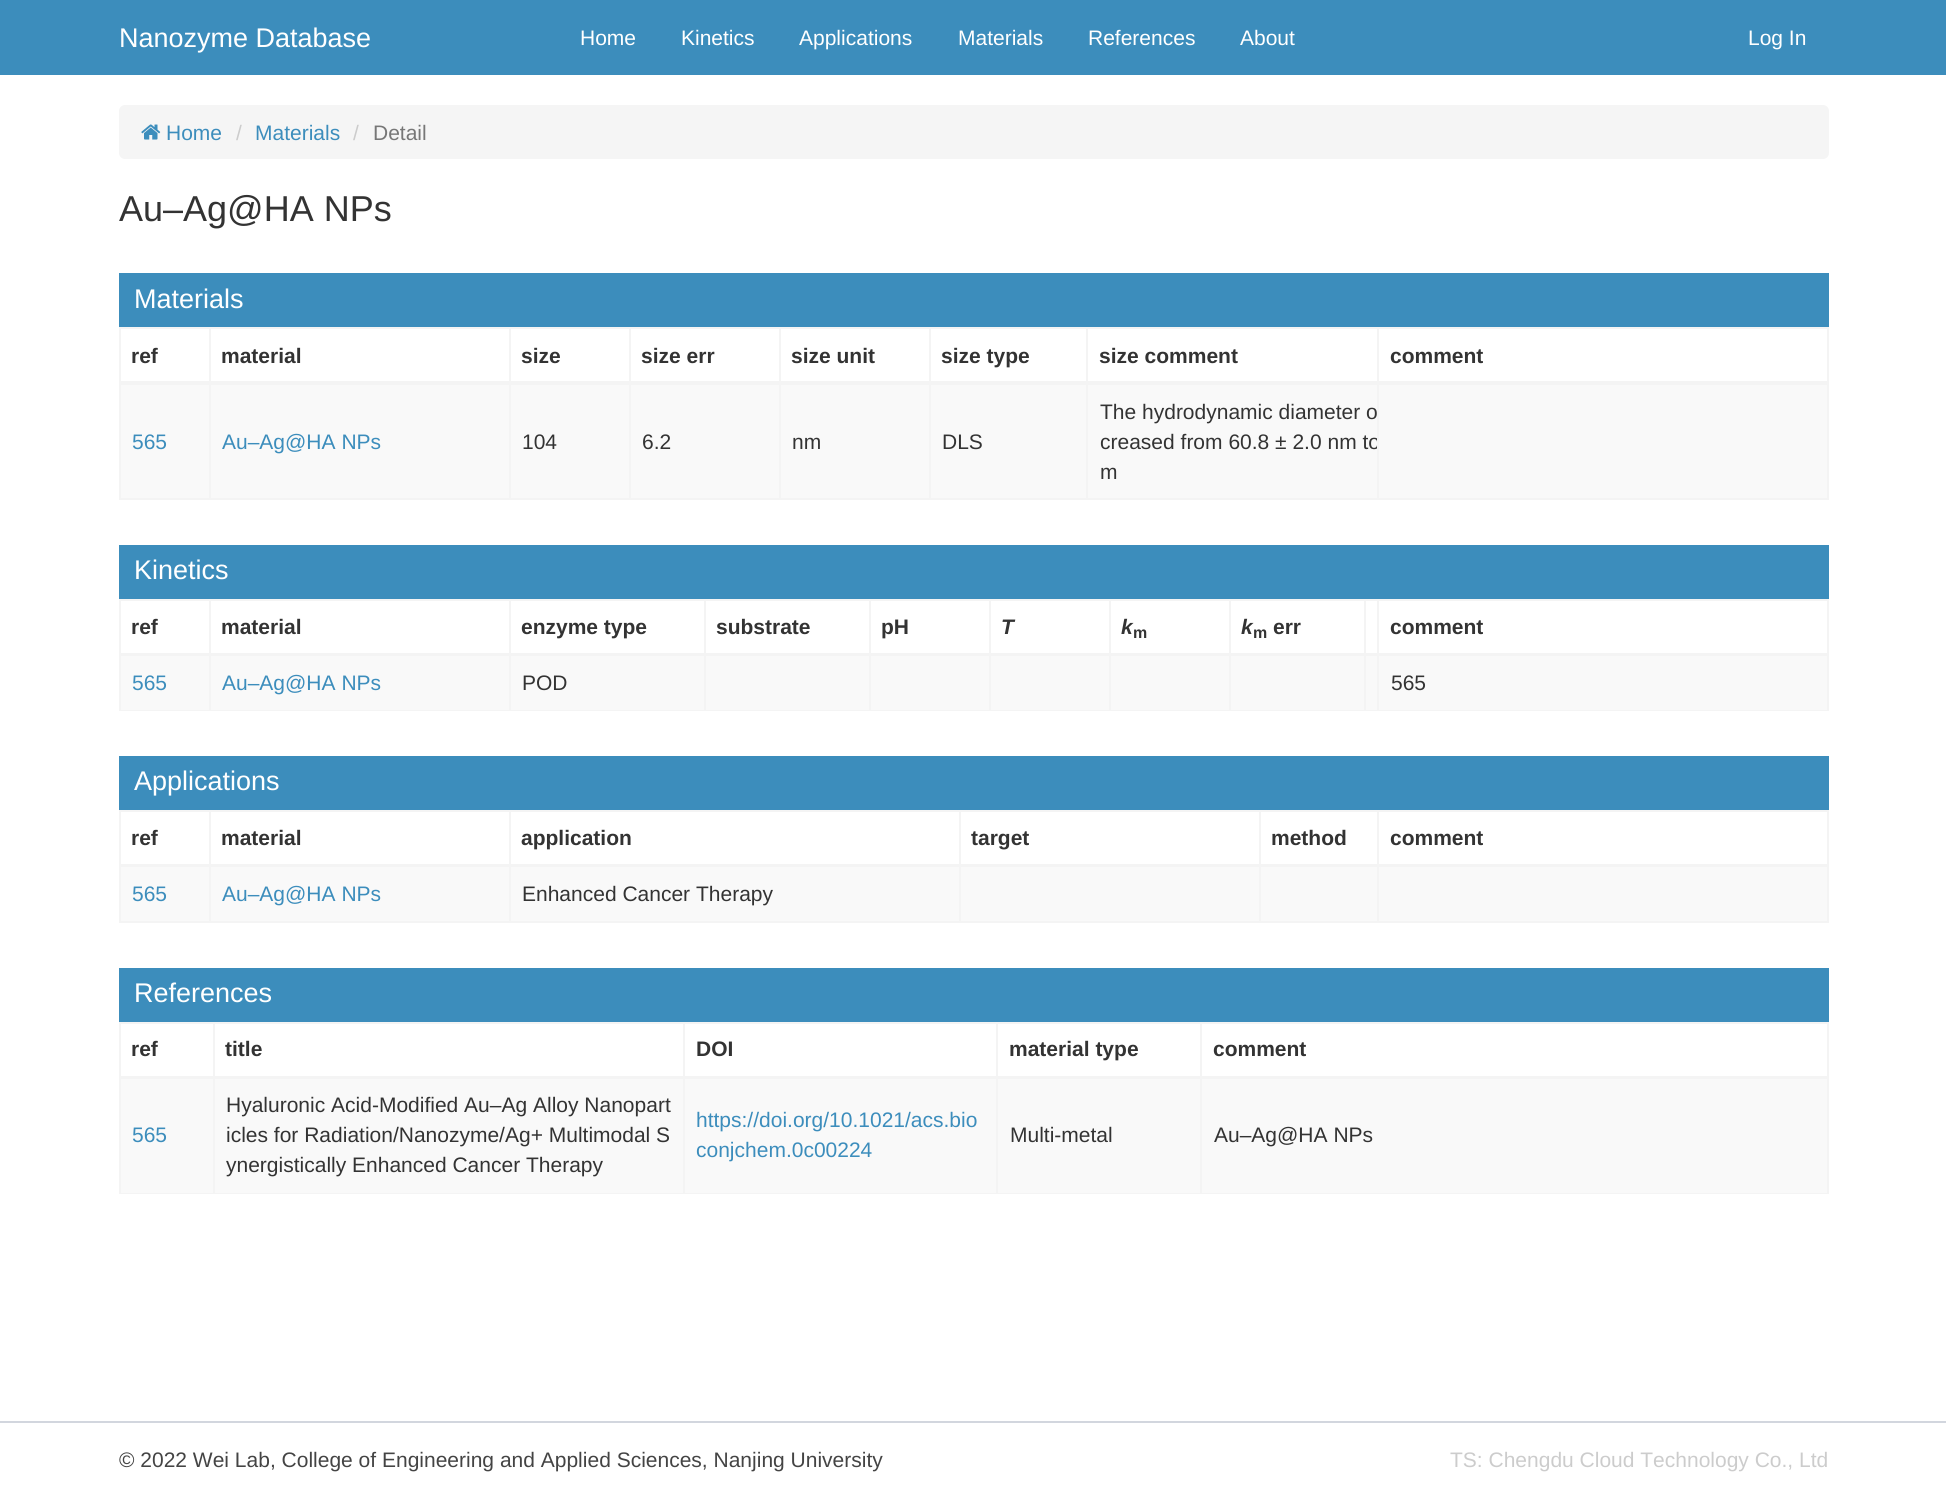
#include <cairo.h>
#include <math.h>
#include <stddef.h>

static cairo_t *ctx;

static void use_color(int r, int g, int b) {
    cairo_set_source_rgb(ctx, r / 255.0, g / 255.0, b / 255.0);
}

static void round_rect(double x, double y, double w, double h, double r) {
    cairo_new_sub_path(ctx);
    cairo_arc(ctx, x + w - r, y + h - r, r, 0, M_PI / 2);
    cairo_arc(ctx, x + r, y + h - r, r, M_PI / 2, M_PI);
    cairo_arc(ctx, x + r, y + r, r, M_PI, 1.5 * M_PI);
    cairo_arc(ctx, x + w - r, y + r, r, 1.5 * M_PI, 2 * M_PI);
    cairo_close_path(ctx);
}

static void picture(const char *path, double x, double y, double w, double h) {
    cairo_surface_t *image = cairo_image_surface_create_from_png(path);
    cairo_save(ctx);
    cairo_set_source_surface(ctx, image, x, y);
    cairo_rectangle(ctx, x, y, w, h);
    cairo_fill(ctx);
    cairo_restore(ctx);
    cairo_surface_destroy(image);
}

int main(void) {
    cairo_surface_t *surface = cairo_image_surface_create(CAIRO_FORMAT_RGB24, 1946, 1512);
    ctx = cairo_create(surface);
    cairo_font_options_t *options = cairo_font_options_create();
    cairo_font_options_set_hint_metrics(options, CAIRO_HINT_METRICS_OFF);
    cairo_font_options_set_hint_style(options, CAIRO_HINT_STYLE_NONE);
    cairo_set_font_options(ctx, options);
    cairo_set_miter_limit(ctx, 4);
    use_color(255, 255, 255);
    cairo_paint(ctx);
    use_color(60, 141, 188);
    cairo_rectangle(ctx, 0, 0, 1946, 75);
    cairo_fill(ctx);
    cairo_select_font_face(ctx, "Liberation Sans", CAIRO_FONT_SLANT_NORMAL, CAIRO_FONT_WEIGHT_NORMAL);
    cairo_set_font_size(ctx, 27);
    use_color(255, 255, 255);
    cairo_move_to(ctx, 119, 47);
    cairo_show_text(ctx, "Nanozyme Database");
    cairo_set_font_size(ctx, 21);
    cairo_move_to(ctx, 580, 45);
    cairo_show_text(ctx, "Home");
    cairo_move_to(ctx, 681, 45);
    cairo_show_text(ctx, "Kinetics");
    cairo_move_to(ctx, 799, 45);
    cairo_show_text(ctx, "Applications");
    cairo_move_to(ctx, 958, 45);
    cairo_show_text(ctx, "Materials");
    cairo_move_to(ctx, 1088, 45);
    cairo_show_text(ctx, "References");
    cairo_move_to(ctx, 1240, 45);
    cairo_show_text(ctx, "About");
    cairo_move_to(ctx, 1748, 45);
    cairo_show_text(ctx, "Log In");
    use_color(245, 245, 245);
    round_rect(119, 105, 1710, 54, 6);
    cairo_fill(ctx);
    picture("img1.png", 141, 124, 20, 16);
    use_color(60, 141, 188);
    cairo_move_to(ctx, 166, 140);
    cairo_show_text(ctx, "Home");
    use_color(204, 204, 204);
    cairo_move_to(ctx, 236, 140);
    cairo_show_text(ctx, "/");
    use_color(60, 141, 188);
    cairo_move_to(ctx, 255, 140);
    cairo_show_text(ctx, "Materials");
    use_color(204, 204, 204);
    cairo_move_to(ctx, 353, 140);
    cairo_show_text(ctx, "/");
    use_color(119, 119, 119);
    cairo_move_to(ctx, 373, 140);
    cairo_show_text(ctx, "Detail");
    cairo_set_font_size(ctx, 36);
    use_color(51, 51, 51);
    cairo_move_to(ctx, 119, 221);
    cairo_show_text(ctx, "Au–Ag@HA NPs");
    use_color(60, 141, 188);
    cairo_rectangle(ctx, 119, 273, 1710, 54);
    cairo_fill(ctx);
    cairo_set_font_size(ctx, 27);
    use_color(255, 255, 255);
    cairo_move_to(ctx, 134, 308);
    cairo_show_text(ctx, "Materials");
    use_color(244, 244, 244);
    cairo_rectangle(ctx, 119, 327, 391, 2);
    cairo_fill(ctx);
    cairo_rectangle(ctx, 119, 327, 2, 171);
    cairo_fill(ctx);
    cairo_select_font_face(ctx, "Liberation Sans", CAIRO_FONT_SLANT_NORMAL, CAIRO_FONT_WEIGHT_BOLD);
    cairo_set_font_size(ctx, 21);
    use_color(51, 51, 51);
    cairo_move_to(ctx, 131, 363);
    cairo_show_text(ctx, "ref");
    use_color(244, 244, 244);
    cairo_rectangle(ctx, 119, 498, 1710, 2);
    cairo_fill(ctx);
    cairo_rectangle(ctx, 1086, 384, 291, 1);
    cairo_fill(ctx);
    cairo_rectangle(ctx, 511, 327, 1318, 2);
    cairo_fill(ctx);
    use_color(249, 249, 249);
    cairo_rectangle(ctx, 511, 385, 866, 113);
    cairo_fill(ctx);
    use_color(244, 244, 244);
    cairo_rectangle(ctx, 1086, 327, 2, 173);
    cairo_fill(ctx);
    cairo_rectangle(ctx, 929, 384, 159, 1);
    cairo_fill(ctx);
    cairo_rectangle(ctx, 929, 327, 2, 173);
    cairo_fill(ctx);
    cairo_rectangle(ctx, 779, 384, 151, 1);
    cairo_fill(ctx);
    cairo_rectangle(ctx, 779, 327, 2, 173);
    cairo_fill(ctx);
    cairo_rectangle(ctx, 629, 384, 151, 1);
    cairo_fill(ctx);
    cairo_rectangle(ctx, 629, 327, 2, 173);
    cairo_fill(ctx);
    cairo_rectangle(ctx, 509, 384, 121, 1);
    cairo_fill(ctx);
    cairo_rectangle(ctx, 509, 383, 2, 117);
    cairo_fill(ctx);
    cairo_rectangle(ctx, 510, 327, 1, 57);
    cairo_fill(ctx);
    cairo_rectangle(ctx, 509, 381, 868, 3);
    cairo_fill(ctx);
    cairo_rectangle(ctx, 509, 327, 1, 57);
    cairo_fill(ctx);
    use_color(249, 249, 249);
    cairo_rectangle(ctx, 121, 385, 388, 113);
    cairo_fill(ctx);
    use_color(244, 244, 244);
    cairo_rectangle(ctx, 209, 384, 301, 1);
    cairo_fill(ctx);
    cairo_rectangle(ctx, 209, 327, 2, 171);
    cairo_fill(ctx);
    cairo_rectangle(ctx, 119, 381, 391, 3);
    cairo_fill(ctx);
    use_color(51, 51, 51);
    cairo_move_to(ctx, 221, 363);
    cairo_show_text(ctx, "material");
    use_color(244, 244, 244);
    cairo_rectangle(ctx, 119, 384, 91, 1);
    cairo_fill(ctx);
    cairo_select_font_face(ctx, "Liberation Sans", CAIRO_FONT_SLANT_NORMAL, CAIRO_FONT_WEIGHT_NORMAL);
    use_color(60, 141, 188);
    cairo_move_to(ctx, 132, 449);
    cairo_show_text(ctx, "565");
    cairo_move_to(ctx, 222, 449);
    cairo_show_text(ctx, "Au–Ag@HA NPs");
    cairo_select_font_face(ctx, "Liberation Sans", CAIRO_FONT_SLANT_NORMAL, CAIRO_FONT_WEIGHT_BOLD);
    use_color(51, 51, 51);
    cairo_move_to(ctx, 521, 363);
    cairo_show_text(ctx, "size");
    cairo_move_to(ctx, 641, 363);
    cairo_show_text(ctx, "size err");
    cairo_move_to(ctx, 791, 363);
    cairo_show_text(ctx, "size unit");
    cairo_move_to(ctx, 941, 363);
    cairo_show_text(ctx, "size type");
    cairo_move_to(ctx, 1099, 363);
    cairo_show_text(ctx, "size comment");
    cairo_select_font_face(ctx, "Liberation Sans", CAIRO_FONT_SLANT_NORMAL, CAIRO_FONT_WEIGHT_NORMAL);
    cairo_move_to(ctx, 522, 449);
    cairo_show_text(ctx, "104");
    cairo_move_to(ctx, 642, 449);
    cairo_show_text(ctx, "6.2");
    cairo_move_to(ctx, 792, 449);
    cairo_show_text(ctx, "nm");
    cairo_move_to(ctx, 942, 449);
    cairo_show_text(ctx, "DLS");
    cairo_move_to(ctx, 1100, 419);
    cairo_show_text(ctx, "The hydrodynamic diameter o");
    cairo_move_to(ctx, 1100, 449);
    cairo_show_text(ctx, "creased from 60.8 ± 2.0 nm to");
    cairo_move_to(ctx, 1100, 479);
    cairo_show_text(ctx, "m");
    use_color(244, 244, 244);
    cairo_rectangle(ctx, 1827, 327, 2, 171);
    cairo_fill(ctx);
    use_color(249, 249, 249);
    cairo_rectangle(ctx, 1379, 385, 448, 113);
    cairo_fill(ctx);
    use_color(244, 244, 244);
    cairo_rectangle(ctx, 1377, 384, 452, 1);
    cairo_fill(ctx);
    cairo_rectangle(ctx, 1377, 327, 2, 171);
    cairo_fill(ctx);
    cairo_rectangle(ctx, 1377, 381, 452, 3);
    cairo_fill(ctx);
    cairo_select_font_face(ctx, "Liberation Sans", CAIRO_FONT_SLANT_NORMAL, CAIRO_FONT_WEIGHT_BOLD);
    use_color(51, 51, 51);
    cairo_move_to(ctx, 1390, 363);
    cairo_show_text(ctx, "comment");
    use_color(60, 141, 188);
    cairo_rectangle(ctx, 119, 545, 1710, 54);
    cairo_fill(ctx);
    cairo_select_font_face(ctx, "Liberation Sans", CAIRO_FONT_SLANT_NORMAL, CAIRO_FONT_WEIGHT_NORMAL);
    cairo_set_font_size(ctx, 27);
    use_color(255, 255, 255);
    cairo_move_to(ctx, 134, 579);
    cairo_show_text(ctx, "Kinetics");
    use_color(244, 244, 244);
    cairo_rectangle(ctx, 119, 599, 391, 2);
    cairo_fill(ctx);
    cairo_rectangle(ctx, 119, 599, 2, 111);
    cairo_fill(ctx);
    cairo_select_font_face(ctx, "Liberation Sans", CAIRO_FONT_SLANT_NORMAL, CAIRO_FONT_WEIGHT_BOLD);
    cairo_set_font_size(ctx, 21);
    use_color(51, 51, 51);
    cairo_move_to(ctx, 131, 634);
    cairo_show_text(ctx, "ref");
    use_color(244, 244, 244);
    cairo_rectangle(ctx, 119, 710, 1710, 1);
    cairo_fill(ctx);
    cairo_rectangle(ctx, 509, 653, 2, 58);
    cairo_fill(ctx);
    cairo_rectangle(ctx, 510, 599, 1, 55);
    cairo_fill(ctx);
    cairo_rectangle(ctx, 511, 599, 1318, 2);
    cairo_fill(ctx);
    use_color(249, 249, 249);
    cairo_rectangle(ctx, 511, 656, 866, 54);
    cairo_fill(ctx);
    use_color(244, 244, 244);
    cairo_rectangle(ctx, 704, 599, 2, 112);
    cairo_fill(ctx);
    cairo_rectangle(ctx, 869, 599, 2, 112);
    cairo_fill(ctx);
    cairo_rectangle(ctx, 989, 599, 2, 112);
    cairo_fill(ctx);
    cairo_rectangle(ctx, 1109, 599, 2, 112);
    cairo_fill(ctx);
    cairo_rectangle(ctx, 1229, 599, 2, 112);
    cairo_fill(ctx);
    cairo_rectangle(ctx, 1364, 599, 2, 112);
    cairo_fill(ctx);
    cairo_rectangle(ctx, 509, 653, 868, 3);
    cairo_fill(ctx);
    cairo_rectangle(ctx, 509, 599, 1, 55);
    cairo_fill(ctx);
    use_color(249, 249, 249);
    cairo_rectangle(ctx, 121, 656, 388, 54);
    cairo_fill(ctx);
    use_color(244, 244, 244);
    cairo_rectangle(ctx, 209, 599, 2, 111);
    cairo_fill(ctx);
    cairo_rectangle(ctx, 119, 653, 391, 3);
    cairo_fill(ctx);
    use_color(51, 51, 51);
    cairo_move_to(ctx, 221, 634);
    cairo_show_text(ctx, "material");
    cairo_select_font_face(ctx, "Liberation Sans", CAIRO_FONT_SLANT_NORMAL, CAIRO_FONT_WEIGHT_NORMAL);
    use_color(60, 141, 188);
    cairo_move_to(ctx, 132, 690);
    cairo_show_text(ctx, "565");
    cairo_move_to(ctx, 222, 690);
    cairo_show_text(ctx, "Au–Ag@HA NPs");
    cairo_select_font_face(ctx, "Liberation Sans", CAIRO_FONT_SLANT_NORMAL, CAIRO_FONT_WEIGHT_BOLD);
    use_color(51, 51, 51);
    cairo_move_to(ctx, 521, 634);
    cairo_show_text(ctx, "enzyme type");
    cairo_move_to(ctx, 716, 634);
    cairo_show_text(ctx, "substrate");
    cairo_move_to(ctx, 881, 634);
    cairo_show_text(ctx, "pH");
    cairo_select_font_face(ctx, "Liberation Sans", CAIRO_FONT_SLANT_ITALIC, CAIRO_FONT_WEIGHT_BOLD);
    cairo_move_to(ctx, 1001, 634);
    cairo_show_text(ctx, "T");
    cairo_move_to(ctx, 1121, 634);
    cairo_show_text(ctx, "k");
    cairo_select_font_face(ctx, "Liberation Sans", CAIRO_FONT_SLANT_NORMAL, CAIRO_FONT_WEIGHT_BOLD);
    cairo_set_font_size(ctx, 16);
    cairo_move_to(ctx, 1133, 638);
    cairo_show_text(ctx, "m");
    cairo_select_font_face(ctx, "Liberation Sans", CAIRO_FONT_SLANT_ITALIC, CAIRO_FONT_WEIGHT_BOLD);
    cairo_set_font_size(ctx, 21);
    cairo_move_to(ctx, 1241, 634);
    cairo_show_text(ctx, "k");
    cairo_select_font_face(ctx, "Liberation Sans", CAIRO_FONT_SLANT_NORMAL, CAIRO_FONT_WEIGHT_BOLD);
    cairo_set_font_size(ctx, 16);
    cairo_move_to(ctx, 1253, 638);
    cairo_show_text(ctx, "m");
    cairo_set_font_size(ctx, 21);
    cairo_move_to(ctx, 1273, 634);
    cairo_show_text(ctx, "err");
    cairo_select_font_face(ctx, "Liberation Sans", CAIRO_FONT_SLANT_NORMAL, CAIRO_FONT_WEIGHT_NORMAL);
    cairo_move_to(ctx, 522, 690);
    cairo_show_text(ctx, "POD");
    use_color(244, 244, 244);
    cairo_rectangle(ctx, 1827, 599, 2, 111);
    cairo_fill(ctx);
    cairo_rectangle(ctx, 1377, 599, 2, 111);
    cairo_fill(ctx);
    cairo_rectangle(ctx, 1377, 653, 452, 3);
    cairo_fill(ctx);
    cairo_select_font_face(ctx, "Liberation Sans", CAIRO_FONT_SLANT_NORMAL, CAIRO_FONT_WEIGHT_BOLD);
    use_color(51, 51, 51);
    cairo_move_to(ctx, 1390, 634);
    cairo_show_text(ctx, "comment");
    use_color(249, 249, 249);
    cairo_rectangle(ctx, 1379, 656, 448, 54);
    cairo_fill(ctx);
    cairo_select_font_face(ctx, "Liberation Sans", CAIRO_FONT_SLANT_NORMAL, CAIRO_FONT_WEIGHT_NORMAL);
    use_color(51, 51, 51);
    cairo_move_to(ctx, 1391, 690);
    cairo_show_text(ctx, "565");
    use_color(60, 141, 188);
    cairo_rectangle(ctx, 119, 756, 1710, 54);
    cairo_fill(ctx);
    cairo_set_font_size(ctx, 27);
    use_color(255, 255, 255);
    cairo_move_to(ctx, 134, 790);
    cairo_show_text(ctx, "Applications");
    use_color(244, 244, 244);
    cairo_rectangle(ctx, 119, 810, 391, 2);
    cairo_fill(ctx);
    cairo_rectangle(ctx, 119, 810, 2, 111);
    cairo_fill(ctx);
    cairo_select_font_face(ctx, "Liberation Sans", CAIRO_FONT_SLANT_NORMAL, CAIRO_FONT_WEIGHT_BOLD);
    cairo_set_font_size(ctx, 21);
    use_color(51, 51, 51);
    cairo_move_to(ctx, 131, 845);
    cairo_show_text(ctx, "ref");
    use_color(244, 244, 244);
    cairo_rectangle(ctx, 119, 921, 1710, 2);
    cairo_fill(ctx);
    cairo_rectangle(ctx, 509, 864, 2, 59);
    cairo_fill(ctx);
    cairo_rectangle(ctx, 510, 810, 1, 56);
    cairo_fill(ctx);
    cairo_rectangle(ctx, 511, 810, 1318, 2);
    cairo_fill(ctx);
    use_color(249, 249, 249);
    cairo_rectangle(ctx, 511, 867, 866, 54);
    cairo_fill(ctx);
    use_color(244, 244, 244);
    cairo_rectangle(ctx, 959, 810, 2, 113);
    cairo_fill(ctx);
    cairo_rectangle(ctx, 1259, 810, 2, 113);
    cairo_fill(ctx);
    cairo_rectangle(ctx, 509, 864, 868, 3);
    cairo_fill(ctx);
    cairo_rectangle(ctx, 509, 810, 1, 56);
    cairo_fill(ctx);
    use_color(249, 249, 249);
    cairo_rectangle(ctx, 121, 867, 388, 54);
    cairo_fill(ctx);
    use_color(244, 244, 244);
    cairo_rectangle(ctx, 209, 810, 2, 111);
    cairo_fill(ctx);
    cairo_rectangle(ctx, 119, 864, 391, 3);
    cairo_fill(ctx);
    use_color(51, 51, 51);
    cairo_move_to(ctx, 221, 845);
    cairo_show_text(ctx, "material");
    cairo_select_font_face(ctx, "Liberation Sans", CAIRO_FONT_SLANT_NORMAL, CAIRO_FONT_WEIGHT_NORMAL);
    use_color(60, 141, 188);
    cairo_move_to(ctx, 132, 901);
    cairo_show_text(ctx, "565");
    cairo_move_to(ctx, 222, 901);
    cairo_show_text(ctx, "Au–Ag@HA NPs");
    cairo_select_font_face(ctx, "Liberation Sans", CAIRO_FONT_SLANT_NORMAL, CAIRO_FONT_WEIGHT_BOLD);
    use_color(51, 51, 51);
    cairo_move_to(ctx, 521, 845);
    cairo_show_text(ctx, "application");
    cairo_move_to(ctx, 971, 845);
    cairo_show_text(ctx, "target");
    cairo_move_to(ctx, 1271, 845);
    cairo_show_text(ctx, "method");
    cairo_select_font_face(ctx, "Liberation Sans", CAIRO_FONT_SLANT_NORMAL, CAIRO_FONT_WEIGHT_NORMAL);
    cairo_move_to(ctx, 522, 901);
    cairo_show_text(ctx, "Enhanced Cancer Therapy");
    use_color(244, 244, 244);
    cairo_rectangle(ctx, 1827, 810, 2, 111);
    cairo_fill(ctx);
    use_color(249, 249, 249);
    cairo_rectangle(ctx, 1379, 867, 448, 54);
    cairo_fill(ctx);
    use_color(244, 244, 244);
    cairo_rectangle(ctx, 1377, 810, 2, 111);
    cairo_fill(ctx);
    cairo_rectangle(ctx, 1377, 864, 452, 3);
    cairo_fill(ctx);
    cairo_select_font_face(ctx, "Liberation Sans", CAIRO_FONT_SLANT_NORMAL, CAIRO_FONT_WEIGHT_BOLD);
    use_color(51, 51, 51);
    cairo_move_to(ctx, 1390, 845);
    cairo_show_text(ctx, "comment");
    use_color(60, 141, 188);
    cairo_rectangle(ctx, 119, 968, 1710, 54);
    cairo_fill(ctx);
    cairo_select_font_face(ctx, "Liberation Sans", CAIRO_FONT_SLANT_NORMAL, CAIRO_FONT_WEIGHT_NORMAL);
    cairo_set_font_size(ctx, 27);
    use_color(255, 255, 255);
    cairo_move_to(ctx, 134, 1002);
    cairo_show_text(ctx, "References");
    use_color(244, 244, 244);
    cairo_rectangle(ctx, 119, 1022, 1710, 2);
    cairo_fill(ctx);
    cairo_rectangle(ctx, 1827, 1022, 2, 172);
    cairo_fill(ctx);
    cairo_rectangle(ctx, 119, 1193, 1710, 1);
    cairo_fill(ctx);
    cairo_rectangle(ctx, 119, 1022, 2, 172);
    cairo_fill(ctx);
    cairo_select_font_face(ctx, "Liberation Sans", CAIRO_FONT_SLANT_NORMAL, CAIRO_FONT_WEIGHT_BOLD);
    cairo_set_font_size(ctx, 21);
    use_color(51, 51, 51);
    cairo_move_to(ctx, 131, 1056);
    cairo_show_text(ctx, "ref");
    cairo_move_to(ctx, 225, 1056);
    cairo_show_text(ctx, "title");
    cairo_move_to(ctx, 696, 1056);
    cairo_show_text(ctx, "DOI");
    cairo_move_to(ctx, 1009, 1056);
    cairo_show_text(ctx, "material type");
    use_color(249, 249, 249);
    cairo_rectangle(ctx, 121, 1079, 1706, 114);
    cairo_fill(ctx);
    use_color(244, 244, 244);
    cairo_rectangle(ctx, 213, 1022, 2, 172);
    cairo_fill(ctx);
    cairo_rectangle(ctx, 683, 1022, 2, 172);
    cairo_fill(ctx);
    cairo_rectangle(ctx, 996, 1022, 2, 172);
    cairo_fill(ctx);
    cairo_rectangle(ctx, 1200, 1022, 2, 172);
    cairo_fill(ctx);
    cairo_rectangle(ctx, 119, 1076, 1710, 3);
    cairo_fill(ctx);
    use_color(51, 51, 51);
    cairo_move_to(ctx, 1213, 1056);
    cairo_show_text(ctx, "comment");
    cairo_select_font_face(ctx, "Liberation Sans", CAIRO_FONT_SLANT_NORMAL, CAIRO_FONT_WEIGHT_NORMAL);
    use_color(60, 141, 188);
    cairo_move_to(ctx, 132, 1142);
    cairo_show_text(ctx, "565");
    use_color(51, 51, 51);
    cairo_move_to(ctx, 226, 1112);
    cairo_show_text(ctx, "Hyaluronic Acid-Modified Au–Ag Alloy Nanopart");
    cairo_move_to(ctx, 226, 1142);
    cairo_show_text(ctx, "icles for Radiation/Nanozyme/Ag+ Multimodal S");
    cairo_move_to(ctx, 226, 1172);
    cairo_show_text(ctx, "ynergistically Enhanced Cancer Therapy");
    use_color(60, 141, 188);
    cairo_move_to(ctx, 696, 1127);
    cairo_show_text(ctx, "https://doi.org/10.1021/acs.bio");
    cairo_move_to(ctx, 696, 1157);
    cairo_show_text(ctx, "conjchem.0c00224");
    use_color(51, 51, 51);
    cairo_move_to(ctx, 1010, 1142);
    cairo_show_text(ctx, "Multi-metal");
    cairo_move_to(ctx, 1214, 1142);
    cairo_show_text(ctx, "Au–Ag@HA NPs");
    use_color(210, 214, 222);
    cairo_rectangle(ctx, 0, 1421, 1946, 2);
    cairo_fill(ctx);
    use_color(68, 68, 68);
    cairo_move_to(ctx, 119, 1467);
    cairo_show_text(ctx, "© 2022 Wei Lab, College of Engineering and Applied Sciences, Nanjing University");
    use_color(204, 204, 204);
    cairo_move_to(ctx, 1450, 1467);
    cairo_show_text(ctx, "TS: Chengdu Cloud Technology Co., Ltd");
    cairo_surface_write_to_png(surface, "result.png");
    cairo_font_options_destroy(options);
    cairo_destroy(ctx);
    cairo_surface_destroy(surface);
    return 0;
}
